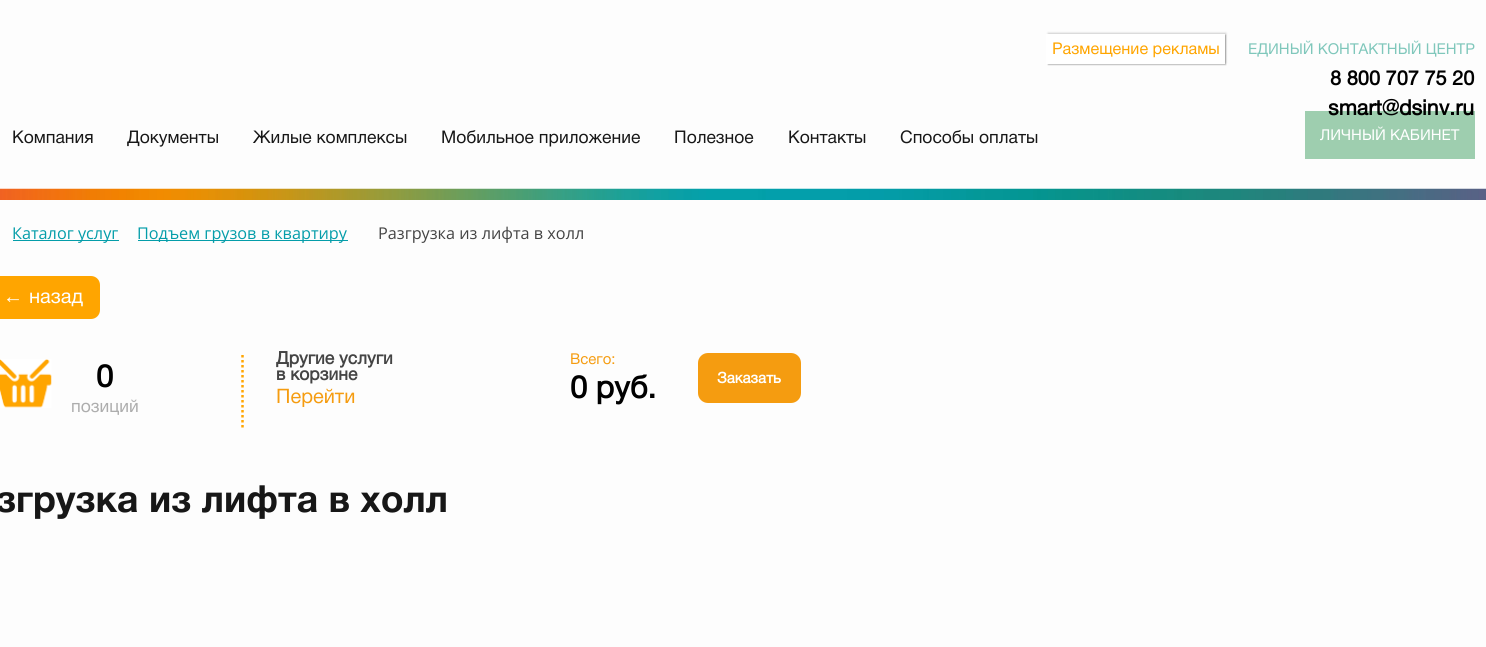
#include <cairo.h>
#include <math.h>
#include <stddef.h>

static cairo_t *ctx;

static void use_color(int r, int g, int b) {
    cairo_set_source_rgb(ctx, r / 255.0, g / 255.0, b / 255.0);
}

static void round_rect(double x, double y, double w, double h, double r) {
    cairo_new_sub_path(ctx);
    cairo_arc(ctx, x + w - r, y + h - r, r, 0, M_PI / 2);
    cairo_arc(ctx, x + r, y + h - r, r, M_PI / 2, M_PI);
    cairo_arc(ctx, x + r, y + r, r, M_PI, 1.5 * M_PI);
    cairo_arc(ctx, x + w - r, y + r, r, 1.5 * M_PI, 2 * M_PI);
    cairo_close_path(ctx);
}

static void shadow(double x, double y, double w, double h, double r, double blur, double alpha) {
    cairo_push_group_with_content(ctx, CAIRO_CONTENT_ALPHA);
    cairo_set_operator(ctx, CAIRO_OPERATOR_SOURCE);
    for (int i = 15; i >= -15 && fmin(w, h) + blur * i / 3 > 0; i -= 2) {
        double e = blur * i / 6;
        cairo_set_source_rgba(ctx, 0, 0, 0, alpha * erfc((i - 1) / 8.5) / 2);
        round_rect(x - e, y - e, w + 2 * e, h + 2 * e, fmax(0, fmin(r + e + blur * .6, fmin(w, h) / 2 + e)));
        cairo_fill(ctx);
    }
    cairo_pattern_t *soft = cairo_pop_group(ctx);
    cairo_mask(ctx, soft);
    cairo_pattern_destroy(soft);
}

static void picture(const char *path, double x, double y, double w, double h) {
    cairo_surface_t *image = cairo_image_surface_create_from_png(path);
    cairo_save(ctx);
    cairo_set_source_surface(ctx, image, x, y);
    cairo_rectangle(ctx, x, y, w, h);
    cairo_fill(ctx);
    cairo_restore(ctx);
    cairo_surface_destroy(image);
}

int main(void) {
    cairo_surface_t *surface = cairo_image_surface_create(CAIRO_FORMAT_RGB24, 1486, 647);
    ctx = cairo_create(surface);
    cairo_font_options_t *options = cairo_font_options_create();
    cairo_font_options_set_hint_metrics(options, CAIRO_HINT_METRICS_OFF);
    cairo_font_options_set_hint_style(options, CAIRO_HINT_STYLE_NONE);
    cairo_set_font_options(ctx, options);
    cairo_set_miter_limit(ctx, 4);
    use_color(253, 253, 253);
    cairo_paint(ctx);
    use_color(0, 0, 0);
    shadow(1048, 35, 178, 30, 0, 0.5, 0.23);
    shadow(1048, 33, 178, 30, 0, 1, 0.19);
    use_color(255, 255, 255);
    cairo_rectangle(ctx, 1046, 34, 179, 30);
    cairo_fill(ctx);
    cairo_select_font_face(ctx, "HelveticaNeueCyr", CAIRO_FONT_SLANT_NORMAL, CAIRO_FONT_WEIGHT_NORMAL);
    cairo_set_font_size(ctx, 16.25);
    use_color(255, 165, 0);
    cairo_move_to(ctx, 1052, 54);
    cairo_show_text(ctx, "Размещение рекламы");
    cairo_set_font_size(ctx, 15);
    use_color(127, 199, 187);
    cairo_move_to(ctx, 1248, 54);
    cairo_show_text(ctx, "ЕДИНЫЙ КОНТАКТНЫЙ ЦЕНТР");
    cairo_select_font_face(ctx, "HelveticaNeueCyr", CAIRO_FONT_SLANT_NORMAL, CAIRO_FONT_WEIGHT_BOLD);
    cairo_set_font_size(ctx, 20);
    use_color(0, 0, 0);
    cairo_move_to(ctx, 1330, 85);
    cairo_show_text(ctx, "8 800 707 75 20");
    use_color(158, 206, 175);
    cairo_rectangle(ctx, 1305, 111, 170, 48);
    cairo_fill(ctx);
    cairo_set_font_size(ctx, 21.25);
    use_color(0, 0, 0);
    cairo_move_to(ctx, 1328, 115);
    cairo_show_text(ctx, "smart@dsinv.ru");
    cairo_select_font_face(ctx, "HelveticaNeueCyr", CAIRO_FONT_SLANT_NORMAL, CAIRO_FONT_WEIGHT_NORMAL);
    cairo_set_font_size(ctx, 17.5);
    use_color(23, 23, 23);
    cairo_move_to(ctx, 12, 143);
    cairo_show_text(ctx, "Компания");
    cairo_move_to(ctx, 127, 143);
    cairo_show_text(ctx, "Документы");
    cairo_move_to(ctx, 253, 143);
    cairo_show_text(ctx, "Жилые комплексы");
    cairo_move_to(ctx, 441, 143);
    cairo_show_text(ctx, "Мобильное приложение");
    cairo_move_to(ctx, 674, 143);
    cairo_show_text(ctx, "Полезное");
    cairo_move_to(ctx, 788, 143);
    cairo_show_text(ctx, "Контакты");
    cairo_move_to(ctx, 900, 143);
    cairo_show_text(ctx, "Способы оплаты");
    cairo_set_font_size(ctx, 15);
    use_color(255, 255, 255);
    cairo_move_to(ctx, 1320, 140);
    cairo_show_text(ctx, "ЛИЧНЫЙ КАБИНЕТ");
    picture("img1.png", 0, 188, 1486, 12);
    use_color(4, 157, 169);
    cairo_rectangle(ctx, 13, 240, 106, 1);
    cairo_fill(ctx);
    cairo_select_font_face(ctx, "Open Sans", CAIRO_FONT_SLANT_NORMAL, CAIRO_FONT_WEIGHT_NORMAL);
    cairo_set_font_size(ctx, 16.25);
    cairo_move_to(ctx, 12, 239);
    cairo_show_text(ctx, "Каталог услуг");
    cairo_rectangle(ctx, 138, 240, 210, 1);
    cairo_fill(ctx);
    cairo_move_to(ctx, 137, 239);
    cairo_show_text(ctx, "Подъем грузов в квартиру");
    use_color(68, 68, 68);
    cairo_move_to(ctx, 378, 239);
    cairo_show_text(ctx, "Разгрузка из лифта в холл");
    use_color(255, 165, 0);
    cairo_new_path(ctx);
    cairo_move_to(ctx, 0, 276);
    cairo_line_to(ctx, 91, 276);
    cairo_curve_to(ctx, 96, 276, 100, 280, 100, 285);
    cairo_line_to(ctx, 100, 310);
    cairo_curve_to(ctx, 100, 315, 96, 319, 91, 319);
    cairo_line_to(ctx, 0, 319);
    cairo_close_path(ctx);
    cairo_fill(ctx);
    cairo_select_font_face(ctx, "Liberation Sans", CAIRO_FONT_SLANT_NORMAL, CAIRO_FONT_WEIGHT_NORMAL);
    cairo_set_font_size(ctx, 20);
    use_color(255, 255, 255);
    cairo_move_to(ctx, 3, 303);
    cairo_show_text(ctx, "←");
    cairo_select_font_face(ctx, "HelveticaNeueCyr", CAIRO_FONT_SLANT_NORMAL, CAIRO_FONT_WEIGHT_NORMAL);
    cairo_move_to(ctx, 29, 303);
    cairo_show_text(ctx, "назад");
    picture("img2.png", 0, 359, 52, 49);
    cairo_select_font_face(ctx, "HelveticaNeueCyr", CAIRO_FONT_SLANT_NORMAL, CAIRO_FONT_WEIGHT_BOLD);
    cairo_set_font_size(ctx, 31);
    use_color(0, 0, 0);
    cairo_move_to(ctx, 96, 387);
    cairo_show_text(ctx, "0");
    cairo_select_font_face(ctx, "HelveticaNeueCyr", CAIRO_FONT_SLANT_NORMAL, CAIRO_FONT_WEIGHT_NORMAL);
    cairo_set_font_size(ctx, 17.5);
    use_color(173, 173, 173);
    cairo_move_to(ctx, 71, 412);
    cairo_show_text(ctx, "позиций");
    cairo_new_path(ctx);
    cairo_move_to(ctx, 242.5, 355);
    cairo_line_to(ctx, 242.5, 430);
    use_color(255, 165, 0);
    cairo_set_line_width(ctx, 2.5);
    cairo_set_dash(ctx, (double[]){2.5, 2.5}, 2, 0);
    cairo_stroke(ctx);
    cairo_select_font_face(ctx, "HelveticaNeueCyr", CAIRO_FONT_SLANT_NORMAL, CAIRO_FONT_WEIGHT_BOLD);
    use_color(68, 68, 68);
    cairo_move_to(ctx, 276, 364);
    cairo_show_text(ctx, "Другие услуги");
    cairo_move_to(ctx, 276, 380);
    cairo_show_text(ctx, "в корзине");
    cairo_select_font_face(ctx, "HelveticaNeueCyr", CAIRO_FONT_SLANT_NORMAL, CAIRO_FONT_WEIGHT_NORMAL);
    cairo_set_font_size(ctx, 20);
    use_color(245, 156, 16);
    cairo_move_to(ctx, 276, 403);
    cairo_show_text(ctx, "Перейти");
    cairo_set_font_size(ctx, 15);
    cairo_move_to(ctx, 570, 364);
    cairo_show_text(ctx, "Всего:");
    cairo_select_font_face(ctx, "HelveticaNeueCyr", CAIRO_FONT_SLANT_NORMAL, CAIRO_FONT_WEIGHT_BOLD);
    cairo_set_font_size(ctx, 31);
    use_color(0, 0, 0);
    cairo_move_to(ctx, 570, 398);
    cairo_show_text(ctx, "0 руб.");
    use_color(245, 156, 16);
    round_rect(698, 353, 103, 50, 10);
    cairo_fill(ctx);
    cairo_set_font_size(ctx, 15);
    use_color(255, 255, 255);
    cairo_move_to(ctx, 717, 383);
    cairo_show_text(ctx, "Заказать");
    cairo_select_font_face(ctx, "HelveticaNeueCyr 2", CAIRO_FONT_SLANT_NORMAL, CAIRO_FONT_WEIGHT_BOLD);
    cairo_set_font_size(ctx, 37.5);
    use_color(23, 23, 23);
    cairo_move_to(ctx, -4, 512);
    cairo_show_text(ctx, "згрузка из лифта в холл");
    cairo_surface_write_to_png(surface, "result.png");
    cairo_font_options_destroy(options);
    cairo_destroy(ctx);
    cairo_surface_destroy(surface);
    return 0;
}
